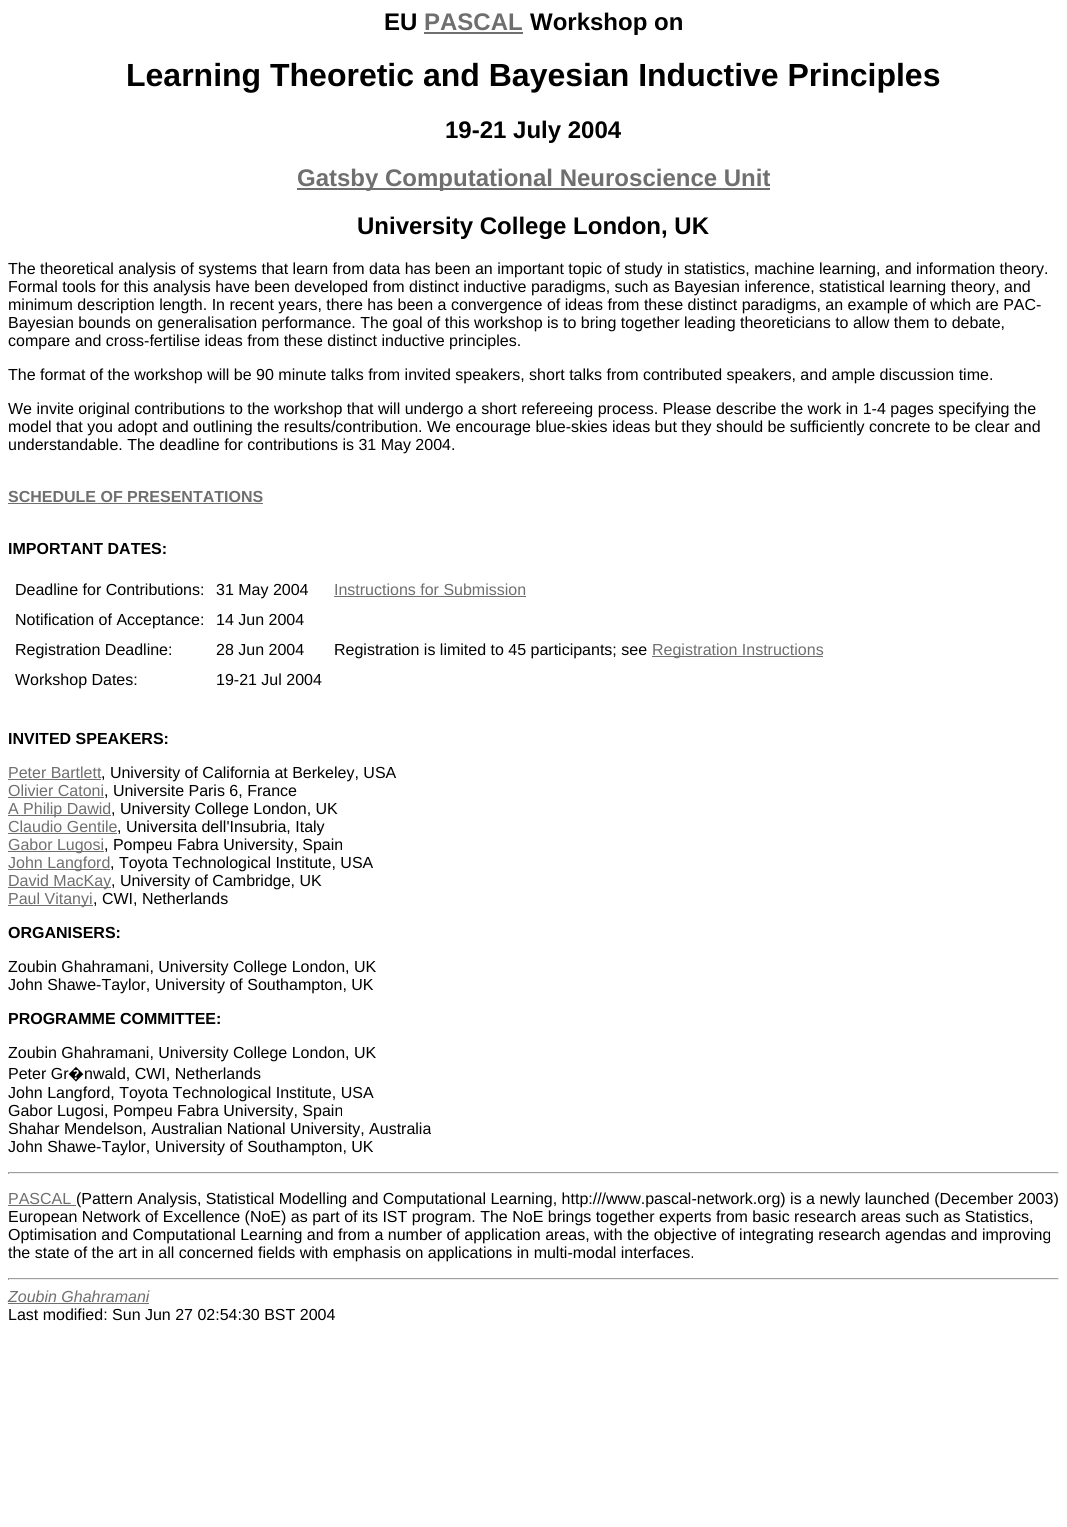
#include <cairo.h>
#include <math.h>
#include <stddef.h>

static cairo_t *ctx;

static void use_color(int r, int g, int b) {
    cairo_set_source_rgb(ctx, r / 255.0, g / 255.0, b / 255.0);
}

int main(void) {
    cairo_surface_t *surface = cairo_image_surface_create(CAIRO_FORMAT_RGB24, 1067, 1527);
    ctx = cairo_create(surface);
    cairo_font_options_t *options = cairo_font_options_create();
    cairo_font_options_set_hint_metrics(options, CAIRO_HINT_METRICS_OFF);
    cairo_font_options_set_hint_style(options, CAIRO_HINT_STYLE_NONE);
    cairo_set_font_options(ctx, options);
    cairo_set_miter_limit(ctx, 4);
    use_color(255, 255, 255);
    cairo_paint(ctx);
    cairo_select_font_face(ctx, "Liberation Sans", CAIRO_FONT_SLANT_NORMAL, CAIRO_FONT_WEIGHT_BOLD);
    cairo_set_font_size(ctx, 24);
    use_color(0, 0, 0);
    cairo_move_to(ctx, 384, 30);
    cairo_show_text(ctx, "EU");
    use_color(111, 111, 111);
    cairo_move_to(ctx, 424, 30);
    cairo_show_text(ctx, "PASCAL");
    cairo_rectangle(ctx, 424, 32, 99, 2);
    cairo_fill(ctx);
    use_color(0, 0, 0);
    cairo_move_to(ctx, 530, 30);
    cairo_show_text(ctx, "Workshop on");
    cairo_set_font_size(ctx, 32);
    cairo_move_to(ctx, 126, 86);
    cairo_show_text(ctx, "Learning Theoretic and Bayesian Inductive Principles");
    cairo_set_font_size(ctx, 24);
    cairo_move_to(ctx, 445, 138);
    cairo_show_text(ctx, "19-21 July 2004");
    use_color(111, 111, 111);
    cairo_rectangle(ctx, 297, 188, 473, 2);
    cairo_fill(ctx);
    cairo_move_to(ctx, 297, 186);
    cairo_show_text(ctx, "Gatsby Computational Neuroscience Unit");
    use_color(0, 0, 0);
    cairo_move_to(ctx, 357, 234);
    cairo_show_text(ctx, "University College London, UK");
    cairo_select_font_face(ctx, "Liberation Sans", CAIRO_FONT_SLANT_NORMAL, CAIRO_FONT_WEIGHT_NORMAL);
    cairo_set_font_size(ctx, 16);
    cairo_move_to(ctx, 8, 274);
    cairo_show_text(ctx, "The theoretical analysis of systems that learn from data has been an important topic of study in statistics, machine learning, and information theory.");
    cairo_move_to(ctx, 8, 292);
    cairo_show_text(ctx, "Formal tools for this analysis have been developed from distinct inductive paradigms, such as Bayesian inference, statistical learning theory, and");
    cairo_move_to(ctx, 8, 310);
    cairo_show_text(ctx, "minimum description length. In recent years, there has been a convergence of ideas from these distinct paradigms, an example of which are PAC-");
    cairo_move_to(ctx, 8, 328);
    cairo_show_text(ctx, "Bayesian bounds on generalisation performance. The goal of this workshop is to bring together leading theoreticians to allow them to debate,");
    cairo_move_to(ctx, 8, 346);
    cairo_show_text(ctx, "compare and cross-fertilise ideas from these distinct inductive principles.");
    cairo_move_to(ctx, 8, 380);
    cairo_show_text(ctx, "The format of the workshop will be 90 minute talks from invited speakers, short talks from contributed speakers, and ample discussion time.");
    cairo_move_to(ctx, 8, 414);
    cairo_show_text(ctx, "We invite original contributions to the workshop that will undergo a short refereeing process. Please describe the work in 1-4 pages specifying the");
    cairo_move_to(ctx, 8, 432);
    cairo_show_text(ctx, "model that you adopt and outlining the results/contribution. We encourage blue-skies ideas but they should be sufficiently concrete to be clear and");
    cairo_move_to(ctx, 8, 450);
    cairo_show_text(ctx, "understandable. The deadline for contributions is 31 May 2004.");
    cairo_select_font_face(ctx, "Liberation Sans", CAIRO_FONT_SLANT_NORMAL, CAIRO_FONT_WEIGHT_BOLD);
    use_color(111, 111, 111);
    cairo_move_to(ctx, 8, 502);
    cairo_show_text(ctx, "SCHEDULE OF PRESENTATIONS");
    cairo_rectangle(ctx, 8, 503, 255, 1);
    cairo_fill(ctx);
    use_color(0, 0, 0);
    cairo_move_to(ctx, 8, 554);
    cairo_show_text(ctx, "IMPORTANT DATES:");
    cairo_select_font_face(ctx, "Liberation Sans", CAIRO_FONT_SLANT_NORMAL, CAIRO_FONT_WEIGHT_NORMAL);
    cairo_move_to(ctx, 15, 595);
    cairo_show_text(ctx, "Deadline for Contributions:");
    cairo_move_to(ctx, 216, 595);
    cairo_show_text(ctx, "31 May 2004");
    use_color(111, 111, 111);
    cairo_move_to(ctx, 334, 595);
    cairo_show_text(ctx, "Instructions for Submission");
    cairo_rectangle(ctx, 334, 596, 192, 1);
    cairo_fill(ctx);
    use_color(0, 0, 0);
    cairo_move_to(ctx, 15, 625);
    cairo_show_text(ctx, "Notification of Acceptance:");
    cairo_move_to(ctx, 216, 625);
    cairo_show_text(ctx, "14 Jun 2004");
    cairo_move_to(ctx, 15, 655);
    cairo_show_text(ctx, "Registration Deadline:");
    cairo_move_to(ctx, 216, 655);
    cairo_show_text(ctx, "28 Jun 2004");
    cairo_move_to(ctx, 334, 655);
    cairo_show_text(ctx, "Registration is limited to 45 participants; see");
    use_color(111, 111, 111);
    cairo_rectangle(ctx, 652, 656, 171, 1);
    cairo_fill(ctx);
    cairo_move_to(ctx, 652, 655);
    cairo_show_text(ctx, "Registration Instructions");
    use_color(0, 0, 0);
    cairo_move_to(ctx, 15, 685);
    cairo_show_text(ctx, "Workshop Dates:");
    cairo_move_to(ctx, 216, 685);
    cairo_show_text(ctx, "19-21 Jul 2004");
    cairo_select_font_face(ctx, "Liberation Sans", CAIRO_FONT_SLANT_NORMAL, CAIRO_FONT_WEIGHT_BOLD);
    cairo_move_to(ctx, 8, 744);
    cairo_show_text(ctx, "INVITED SPEAKERS:");
    cairo_select_font_face(ctx, "Liberation Sans", CAIRO_FONT_SLANT_NORMAL, CAIRO_FONT_WEIGHT_NORMAL);
    use_color(111, 111, 111);
    cairo_move_to(ctx, 8, 778);
    cairo_show_text(ctx, "Peter Bartlett");
    cairo_rectangle(ctx, 8, 779, 93, 1);
    cairo_fill(ctx);
    use_color(0, 0, 0);
    cairo_move_to(ctx, 101, 778);
    cairo_show_text(ctx, ", University of California at Berkeley, USA");
    use_color(111, 111, 111);
    cairo_move_to(ctx, 8, 796);
    cairo_show_text(ctx, "Olivier Catoni");
    cairo_rectangle(ctx, 8, 797, 96, 1);
    cairo_fill(ctx);
    use_color(0, 0, 0);
    cairo_move_to(ctx, 104, 796);
    cairo_show_text(ctx, ", Universite Paris 6, France");
    use_color(111, 111, 111);
    cairo_rectangle(ctx, 8, 815, 103, 1);
    cairo_fill(ctx);
    cairo_move_to(ctx, 8, 814);
    cairo_show_text(ctx, "A Philip Dawid");
    use_color(0, 0, 0);
    cairo_move_to(ctx, 111, 814);
    cairo_show_text(ctx, ", University College London, UK");
    use_color(111, 111, 111);
    cairo_move_to(ctx, 8, 832);
    cairo_show_text(ctx, "Claudio Gentile");
    cairo_rectangle(ctx, 8, 833, 109, 1);
    cairo_fill(ctx);
    use_color(0, 0, 0);
    cairo_move_to(ctx, 117, 832);
    cairo_show_text(ctx, ", Universita dell'Insubria, Italy");
    use_color(111, 111, 111);
    cairo_rectangle(ctx, 8, 851, 96, 1);
    cairo_fill(ctx);
    cairo_move_to(ctx, 8, 850);
    cairo_show_text(ctx, "Gabor Lugosi");
    use_color(0, 0, 0);
    cairo_move_to(ctx, 104, 850);
    cairo_show_text(ctx, ", Pompeu Fabra University, Spain");
    use_color(111, 111, 111);
    cairo_rectangle(ctx, 8, 869, 102, 1);
    cairo_fill(ctx);
    cairo_move_to(ctx, 8, 868);
    cairo_show_text(ctx, "John Langford");
    use_color(0, 0, 0);
    cairo_move_to(ctx, 110, 868);
    cairo_show_text(ctx, ", Toyota Technological Institute, USA");
    use_color(111, 111, 111);
    cairo_rectangle(ctx, 8, 887, 103, 1);
    cairo_fill(ctx);
    cairo_move_to(ctx, 8, 886);
    cairo_show_text(ctx, "David MacKay");
    use_color(0, 0, 0);
    cairo_move_to(ctx, 111, 886);
    cairo_show_text(ctx, ", University of Cambridge, UK");
    use_color(111, 111, 111);
    cairo_rectangle(ctx, 8, 905, 85, 1);
    cairo_fill(ctx);
    cairo_move_to(ctx, 8, 904);
    cairo_show_text(ctx, "Paul Vitanyi");
    use_color(0, 0, 0);
    cairo_move_to(ctx, 93, 904);
    cairo_show_text(ctx, ", CWI, Netherlands");
    cairo_select_font_face(ctx, "Liberation Sans", CAIRO_FONT_SLANT_NORMAL, CAIRO_FONT_WEIGHT_BOLD);
    cairo_move_to(ctx, 8, 938);
    cairo_show_text(ctx, "ORGANISERS:");
    cairo_select_font_face(ctx, "Liberation Sans", CAIRO_FONT_SLANT_NORMAL, CAIRO_FONT_WEIGHT_NORMAL);
    cairo_move_to(ctx, 8, 972);
    cairo_show_text(ctx, "Zoubin Ghahramani, University College London, UK");
    cairo_move_to(ctx, 8, 990);
    cairo_show_text(ctx, "John Shawe-Taylor, University of Southampton, UK");
    cairo_select_font_face(ctx, "Liberation Sans", CAIRO_FONT_SLANT_NORMAL, CAIRO_FONT_WEIGHT_BOLD);
    cairo_move_to(ctx, 8, 1024);
    cairo_show_text(ctx, "PROGRAMME COMMITTEE:");
    cairo_select_font_face(ctx, "Liberation Sans", CAIRO_FONT_SLANT_NORMAL, CAIRO_FONT_WEIGHT_NORMAL);
    cairo_move_to(ctx, 8, 1058);
    cairo_show_text(ctx, "Zoubin Ghahramani, University College London, UK");
    cairo_move_to(ctx, 8, 1079);
    cairo_show_text(ctx, "Peter Gr");
    cairo_select_font_face(ctx, "Noto Sans", CAIRO_FONT_SLANT_NORMAL, CAIRO_FONT_WEIGHT_NORMAL);
    cairo_move_to(ctx, 68, 1079);
    cairo_show_text(ctx, "�");
    cairo_select_font_face(ctx, "Liberation Sans", CAIRO_FONT_SLANT_NORMAL, CAIRO_FONT_WEIGHT_NORMAL);
    cairo_move_to(ctx, 84, 1079);
    cairo_show_text(ctx, "nwald, CWI, Netherlands");
    cairo_move_to(ctx, 8, 1098);
    cairo_show_text(ctx, "John Langford, Toyota Technological Institute, USA");
    cairo_move_to(ctx, 8, 1116);
    cairo_show_text(ctx, "Gabor Lugosi, Pompeu Fabra University, Spain");
    cairo_move_to(ctx, 8, 1134);
    cairo_show_text(ctx, "Shahar Mendelson, Australian National University, Australia");
    cairo_move_to(ctx, 8, 1152);
    cairo_show_text(ctx, "John Shawe-Taylor, University of Southampton, UK");
    use_color(159, 159, 159);
    cairo_rectangle(ctx, 8, 1172, 1051, 1);
    cairo_fill(ctx);
    use_color(238, 238, 238);
    cairo_rectangle(ctx, 1058, 1172, 1, 2);
    cairo_fill(ctx);
    cairo_rectangle(ctx, 8, 1173, 1051, 1);
    cairo_fill(ctx);
    use_color(159, 159, 159);
    cairo_rectangle(ctx, 8, 1172, 1, 2);
    cairo_fill(ctx);
    use_color(111, 111, 111);
    cairo_move_to(ctx, 8, 1204);
    cairo_show_text(ctx, "PASCAL");
    cairo_rectangle(ctx, 8, 1205, 68, 1);
    cairo_fill(ctx);
    use_color(0, 0, 0);
    cairo_move_to(ctx, 76, 1204);
    cairo_show_text(ctx, "(Pattern Analysis, Statistical Modelling and Computational Learning, http:///www.pascal-network.org) is a newly launched (December 2003)");
    cairo_move_to(ctx, 8, 1222);
    cairo_show_text(ctx, "European Network of Excellence (NoE) as part of its IST program. The NoE brings together experts from basic research areas such as Statistics,");
    cairo_move_to(ctx, 8, 1240);
    cairo_show_text(ctx, "Optimisation and Computational Learning and from a number of application areas, with the objective of integrating research agendas and improving");
    cairo_move_to(ctx, 8, 1258);
    cairo_show_text(ctx, "the state of the art in all concerned fields with emphasis on applications in multi-modal interfaces.");
    use_color(159, 159, 159);
    cairo_rectangle(ctx, 8, 1278, 1051, 1);
    cairo_fill(ctx);
    use_color(238, 238, 238);
    cairo_rectangle(ctx, 1058, 1278, 1, 2);
    cairo_fill(ctx);
    cairo_rectangle(ctx, 8, 1279, 1051, 1);
    cairo_fill(ctx);
    use_color(159, 159, 159);
    cairo_rectangle(ctx, 8, 1278, 1, 2);
    cairo_fill(ctx);
    cairo_select_font_face(ctx, "Liberation Sans", CAIRO_FONT_SLANT_ITALIC, CAIRO_FONT_WEIGHT_NORMAL);
    use_color(111, 111, 111);
    cairo_move_to(ctx, 8, 1302);
    cairo_show_text(ctx, "Zoubin Ghahramani");
    cairo_rectangle(ctx, 8, 1303, 141, 1);
    cairo_fill(ctx);
    cairo_select_font_face(ctx, "Liberation Sans", CAIRO_FONT_SLANT_NORMAL, CAIRO_FONT_WEIGHT_NORMAL);
    use_color(0, 0, 0);
    cairo_move_to(ctx, 8, 1320);
    cairo_show_text(ctx, "Last modified: Sun Jun 27 02:54:30 BST 2004");
    cairo_surface_write_to_png(surface, "result.png");
    cairo_font_options_destroy(options);
    cairo_destroy(ctx);
    cairo_surface_destroy(surface);
    return 0;
}
